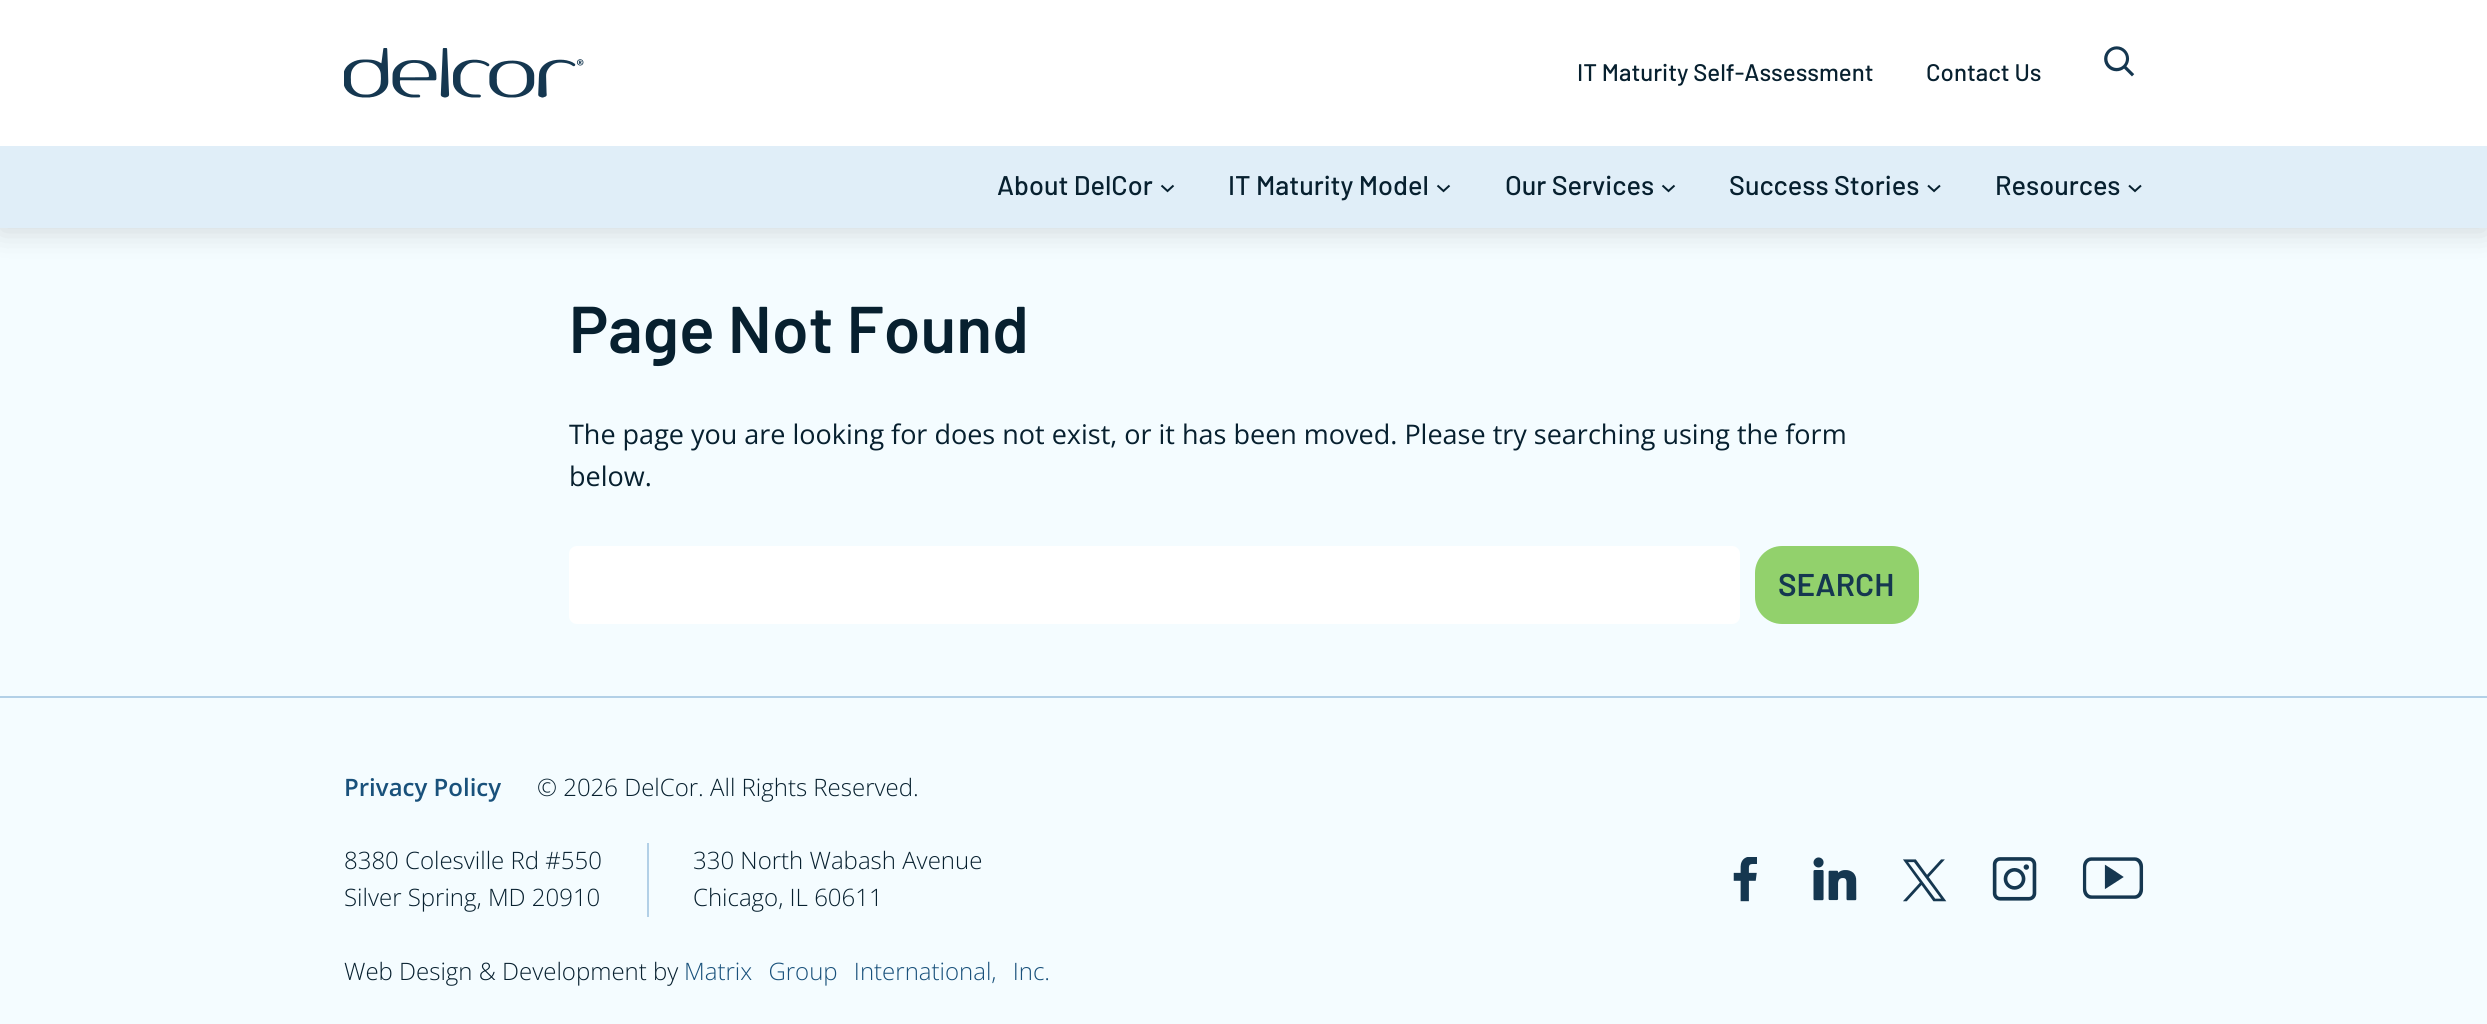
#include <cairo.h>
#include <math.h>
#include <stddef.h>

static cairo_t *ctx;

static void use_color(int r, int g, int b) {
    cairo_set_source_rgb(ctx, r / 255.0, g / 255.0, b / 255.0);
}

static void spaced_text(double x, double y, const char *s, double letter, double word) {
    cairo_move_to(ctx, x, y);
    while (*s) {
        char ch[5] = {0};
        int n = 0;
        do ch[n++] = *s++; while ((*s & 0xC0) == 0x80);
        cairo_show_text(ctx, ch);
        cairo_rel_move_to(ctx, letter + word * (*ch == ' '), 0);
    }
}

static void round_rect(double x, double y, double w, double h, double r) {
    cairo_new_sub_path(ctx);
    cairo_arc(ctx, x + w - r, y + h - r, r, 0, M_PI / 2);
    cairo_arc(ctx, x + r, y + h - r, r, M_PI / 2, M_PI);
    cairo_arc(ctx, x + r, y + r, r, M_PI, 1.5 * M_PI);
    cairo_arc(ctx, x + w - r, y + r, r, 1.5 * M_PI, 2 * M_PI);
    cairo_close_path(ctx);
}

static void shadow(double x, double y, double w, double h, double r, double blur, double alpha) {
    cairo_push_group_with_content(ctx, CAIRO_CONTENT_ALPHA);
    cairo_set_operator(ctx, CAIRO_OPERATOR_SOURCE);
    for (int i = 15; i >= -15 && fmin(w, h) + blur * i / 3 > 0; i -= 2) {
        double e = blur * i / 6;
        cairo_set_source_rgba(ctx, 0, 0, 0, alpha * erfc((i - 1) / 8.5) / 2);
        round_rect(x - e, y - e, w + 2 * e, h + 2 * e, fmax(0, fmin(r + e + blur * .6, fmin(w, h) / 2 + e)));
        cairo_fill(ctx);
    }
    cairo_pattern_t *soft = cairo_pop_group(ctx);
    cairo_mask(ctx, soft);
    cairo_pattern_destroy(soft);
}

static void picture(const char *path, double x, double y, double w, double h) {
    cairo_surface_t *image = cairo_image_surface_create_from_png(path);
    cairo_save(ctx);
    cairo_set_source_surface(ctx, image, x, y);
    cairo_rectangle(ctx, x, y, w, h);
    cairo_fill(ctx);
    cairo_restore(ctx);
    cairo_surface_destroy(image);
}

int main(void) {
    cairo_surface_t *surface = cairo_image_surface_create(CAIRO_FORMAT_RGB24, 2487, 1024);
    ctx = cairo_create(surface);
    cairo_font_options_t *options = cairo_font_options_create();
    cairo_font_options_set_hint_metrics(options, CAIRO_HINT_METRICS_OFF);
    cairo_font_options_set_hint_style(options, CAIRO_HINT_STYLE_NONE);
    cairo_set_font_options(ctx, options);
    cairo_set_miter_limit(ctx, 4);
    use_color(244, 252, 255);
    cairo_paint(ctx);
    use_color(0, 0, 0);
    shadow(0, 149, 2487, 82, 0, 15, 0.15);
    use_color(255, 255, 255);
    cairo_rectangle(ctx, 0, 0, 2487, 146);
    cairo_fill(ctx);
    picture("img1.png", 344, 48, 240, 50);
    cairo_select_font_face(ctx, "Barlow Medium", CAIRO_FONT_SLANT_NORMAL, CAIRO_FONT_WEIGHT_NORMAL);
    cairo_set_font_size(ctx, 24);
    use_color(7, 32, 47);
    cairo_move_to(ctx, 1577, 81);
    cairo_show_text(ctx, "IT Maturity Self-Assessment");
    cairo_move_to(ctx, 1926, 81);
    cairo_show_text(ctx, "Contact Us");
    picture("img2.png", 2104, 46, 31, 31);
    use_color(224, 238, 248);
    cairo_rectangle(ctx, 0, 146, 2487, 82);
    cairo_fill(ctx);
    cairo_set_font_size(ctx, 27);
    use_color(7, 32, 47);
    cairo_move_to(ctx, 997, 195);
    cairo_show_text(ctx, "About DelCor");
    cairo_new_path(ctx);
    cairo_move_to(ctx, 1161.5, 185.5);
    cairo_line_to(ctx, 1167.5, 191);
    cairo_line_to(ctx, 1173.5, 185.5);
    cairo_stroke(ctx);
    cairo_move_to(ctx, 1228, 195);
    cairo_show_text(ctx, "IT Maturity Model");
    cairo_new_path(ctx);
    cairo_move_to(ctx, 1437.5, 185.5);
    cairo_line_to(ctx, 1443.5, 191);
    cairo_line_to(ctx, 1449.5, 185.5);
    cairo_stroke(ctx);
    cairo_move_to(ctx, 1505, 195);
    cairo_show_text(ctx, "Our Services");
    cairo_new_path(ctx);
    cairo_move_to(ctx, 1662.5, 185.5);
    cairo_line_to(ctx, 1668.5, 191);
    cairo_line_to(ctx, 1674.5, 185.5);
    cairo_stroke(ctx);
    cairo_move_to(ctx, 1729, 195);
    cairo_show_text(ctx, "Success Stories");
    cairo_new_path(ctx);
    cairo_move_to(ctx, 1928, 185.5);
    cairo_line_to(ctx, 1934, 191);
    cairo_line_to(ctx, 1940, 185.5);
    cairo_stroke(ctx);
    cairo_move_to(ctx, 1995, 195);
    cairo_show_text(ctx, "Resources");
    cairo_new_path(ctx);
    cairo_move_to(ctx, 2129, 185.5);
    cairo_line_to(ctx, 2135, 191);
    cairo_line_to(ctx, 2141, 185.5);
    cairo_stroke(ctx);
    cairo_select_font_face(ctx, "Barlow SemiBold", CAIRO_FONT_SLANT_NORMAL, CAIRO_FONT_WEIGHT_NORMAL);
    cairo_set_font_size(ctx, 66);
    cairo_move_to(ctx, 569, 353);
    cairo_show_text(ctx, "Page Not Found");
    cairo_select_font_face(ctx, "Open Sans", CAIRO_FONT_SLANT_NORMAL, CAIRO_FONT_WEIGHT_NORMAL);
    cairo_set_font_size(ctx, 27);
    cairo_move_to(ctx, 569, 444);
    cairo_show_text(ctx, "The page you are looking for does not exist, or it has been moved. Please try searching using the form");
    cairo_move_to(ctx, 569, 486);
    cairo_show_text(ctx, "below.");
    use_color(255, 255, 255);
    round_rect(569, 546, 1171, 78, 8);
    cairo_fill(ctx);
    use_color(146, 209, 108);
    round_rect(1755, 546, 164, 78, 27);
    cairo_fill(ctx);
    cairo_select_font_face(ctx, "Barlow SemiBold", CAIRO_FONT_SLANT_NORMAL, CAIRO_FONT_WEIGHT_NORMAL);
    cairo_set_font_size(ctx, 31.5);
    use_color(21, 55, 80);
    cairo_move_to(ctx, 1778, 596);
    cairo_show_text(ctx, "SEARCH");
    use_color(178, 208, 231);
    cairo_rectangle(ctx, 0, 696, 2487, 2);
    cairo_fill(ctx);
    cairo_select_font_face(ctx, "Open Sans SemiBold", CAIRO_FONT_SLANT_NORMAL, CAIRO_FONT_WEIGHT_NORMAL);
    cairo_set_font_size(ctx, 24);
    use_color(25, 81, 123);
    cairo_move_to(ctx, 344, 796);
    cairo_show_text(ctx, "Privacy Policy");
    cairo_select_font_face(ctx, "Open Sans Light", CAIRO_FONT_SLANT_NORMAL, CAIRO_FONT_WEIGHT_NORMAL);
    use_color(7, 32, 47);
    cairo_move_to(ctx, 537, 796);
    cairo_show_text(ctx, "© 2026 DelCor. All Rights Reserved.");
    cairo_move_to(ctx, 344, 869);
    cairo_show_text(ctx, "8380 Colesville Rd #550");
    cairo_move_to(ctx, 344, 906);
    cairo_show_text(ctx, "Silver Spring, MD 20910");
    use_color(178, 208, 231);
    cairo_rectangle(ctx, 647, 843, 2, 74);
    cairo_fill(ctx);
    use_color(7, 32, 47);
    cairo_move_to(ctx, 693, 869);
    cairo_show_text(ctx, "330 North Wabash Avenue");
    cairo_move_to(ctx, 693, 906);
    cairo_show_text(ctx, "Chicago, IL 60611");
    cairo_move_to(ctx, 344, 980);
    cairo_show_text(ctx, "Web Design & Development by");
    use_color(25, 81, 123);
    spaced_text(684, 980, "Matrix Group International, Inc.", 0, 10);
    picture("img3.png", 1733, 857, 24, 45);
    picture("img4.png", 1813, 857, 44, 44);
    picture("img5.png", 1903, 859, 44, 43);
    picture("img6.png", 1992, 857, 45, 44);
    picture("img7.png", 2082, 857, 62, 42);
    cairo_surface_write_to_png(surface, "result.png");
    cairo_font_options_destroy(options);
    cairo_destroy(ctx);
    cairo_surface_destroy(surface);
    return 0;
}
